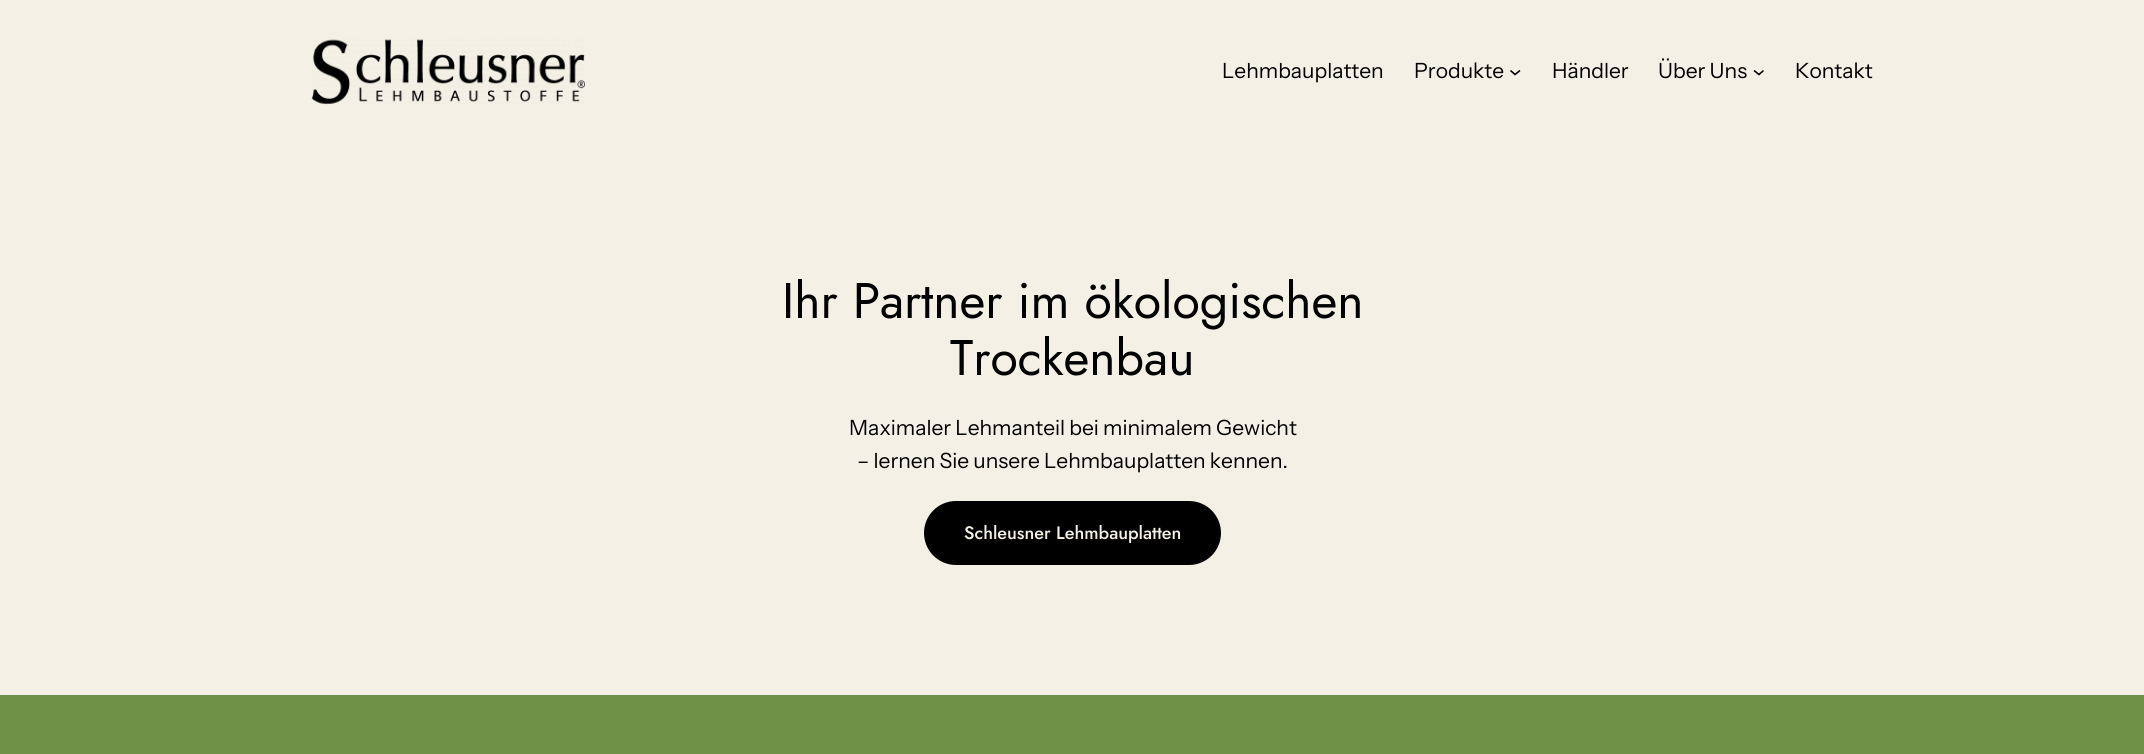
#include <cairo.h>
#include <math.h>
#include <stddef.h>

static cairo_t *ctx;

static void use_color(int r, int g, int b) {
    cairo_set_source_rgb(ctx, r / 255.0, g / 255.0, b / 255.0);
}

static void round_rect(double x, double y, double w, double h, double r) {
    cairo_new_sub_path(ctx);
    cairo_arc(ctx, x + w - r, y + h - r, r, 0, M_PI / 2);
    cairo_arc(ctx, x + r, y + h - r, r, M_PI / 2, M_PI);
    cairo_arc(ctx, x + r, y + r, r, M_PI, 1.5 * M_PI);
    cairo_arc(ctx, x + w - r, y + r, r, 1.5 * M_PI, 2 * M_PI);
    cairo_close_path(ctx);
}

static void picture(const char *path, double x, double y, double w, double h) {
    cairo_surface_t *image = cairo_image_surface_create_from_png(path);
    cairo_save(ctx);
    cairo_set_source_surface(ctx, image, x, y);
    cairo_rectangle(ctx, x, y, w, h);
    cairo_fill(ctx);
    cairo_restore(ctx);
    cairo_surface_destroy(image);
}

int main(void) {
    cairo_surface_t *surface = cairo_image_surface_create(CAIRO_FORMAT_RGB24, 2144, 754);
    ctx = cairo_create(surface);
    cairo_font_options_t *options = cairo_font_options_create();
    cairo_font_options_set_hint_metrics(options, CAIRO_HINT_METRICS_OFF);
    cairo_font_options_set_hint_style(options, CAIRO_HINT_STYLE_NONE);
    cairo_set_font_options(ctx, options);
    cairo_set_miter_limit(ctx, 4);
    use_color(244, 240, 230);
    cairo_paint(ctx);
    picture("img1.png", 311, 39, 274, 66);
    cairo_select_font_face(ctx, "Instrument Sans", CAIRO_FONT_SLANT_NORMAL, CAIRO_FONT_WEIGHT_NORMAL);
    cairo_set_font_size(ctx, 21);
    use_color(0, 0, 0);
    cairo_move_to(ctx, 1222, 78);
    cairo_show_text(ctx, "Lehmbauplatten");
    cairo_move_to(ctx, 1414, 78);
    cairo_show_text(ctx, "Produkte");
    cairo_new_path(ctx);
    cairo_move_to(ctx, 1510.5, 70.5);
    cairo_line_to(ctx, 1515, 74.5);
    cairo_line_to(ctx, 1520, 70.5);
    cairo_set_line_width(ctx, 1.6);
    cairo_stroke(ctx);
    cairo_move_to(ctx, 1552, 78);
    cairo_show_text(ctx, "Händler");
    cairo_move_to(ctx, 1658, 78);
    cairo_show_text(ctx, "Über Uns");
    cairo_new_path(ctx);
    cairo_move_to(ctx, 1754, 70.5);
    cairo_line_to(ctx, 1759, 74.5);
    cairo_line_to(ctx, 1763.5, 70.5);
    cairo_stroke(ctx);
    cairo_move_to(ctx, 1795, 78);
    cairo_show_text(ctx, "Kontakt");
    cairo_select_font_face(ctx, "Jost", CAIRO_FONT_SLANT_NORMAL, CAIRO_FONT_WEIGHT_NORMAL);
    cairo_set_font_size(ctx, 50);
    cairo_move_to(ctx, 782, 318);
    cairo_show_text(ctx, "Ihr Partner im ökologischen");
    cairo_move_to(ctx, 950, 375);
    cairo_show_text(ctx, "Trockenbau");
    cairo_select_font_face(ctx, "Instrument Sans", CAIRO_FONT_SLANT_NORMAL, CAIRO_FONT_WEIGHT_NORMAL);
    cairo_set_font_size(ctx, 21);
    cairo_move_to(ctx, 849, 435);
    cairo_show_text(ctx, "Maximaler Lehmanteil bei minimalem Gewicht");
    cairo_move_to(ctx, 857, 468);
    cairo_show_text(ctx, "– lernen Sie unsere Lehmbauplatten kennen.");
    round_rect(924, 501, 297, 64, 32);
    cairo_fill(ctx);
    cairo_select_font_face(ctx, "Jost Medium", CAIRO_FONT_SLANT_NORMAL, CAIRO_FONT_WEIGHT_NORMAL);
    cairo_set_font_size(ctx, 18);
    use_color(244, 240, 230);
    cairo_move_to(ctx, 964, 539);
    cairo_show_text(ctx, "Schleusner Lehmbauplatten");
    use_color(111, 145, 71);
    cairo_rectangle(ctx, 0, 695, 2144, 59);
    cairo_fill(ctx);
    cairo_surface_write_to_png(surface, "result.png");
    cairo_font_options_destroy(options);
    cairo_destroy(ctx);
    cairo_surface_destroy(surface);
    return 0;
}
